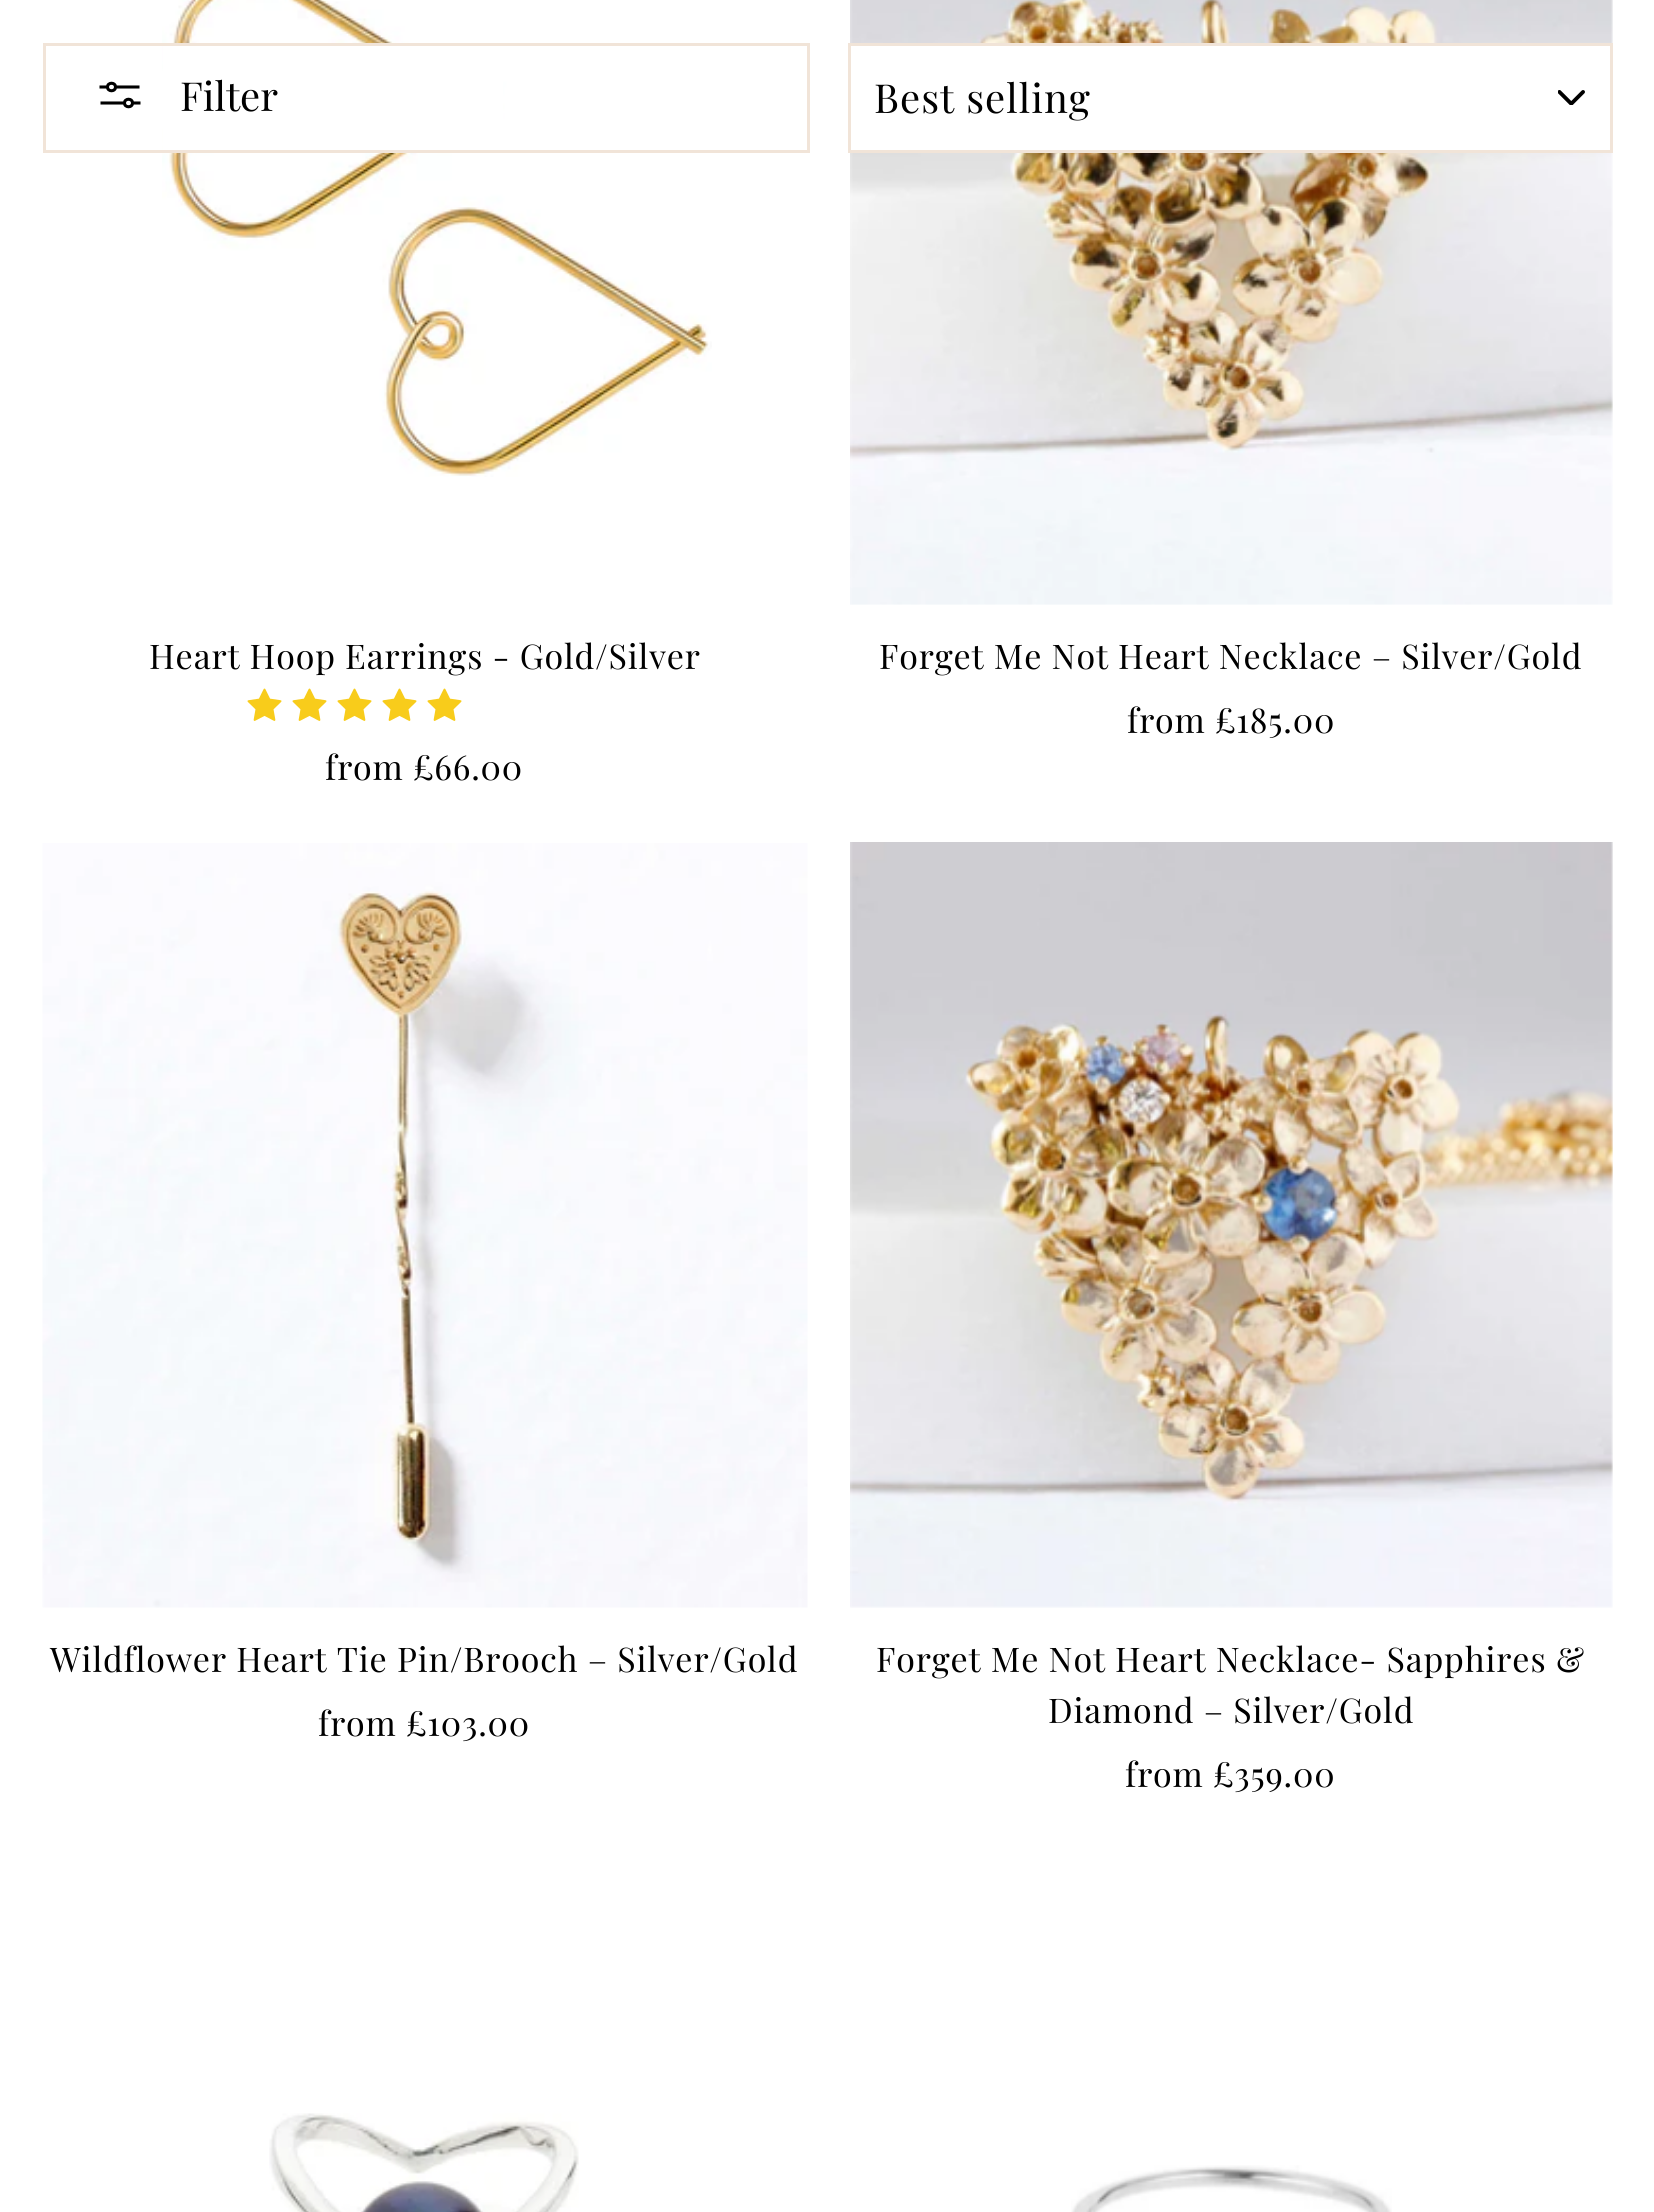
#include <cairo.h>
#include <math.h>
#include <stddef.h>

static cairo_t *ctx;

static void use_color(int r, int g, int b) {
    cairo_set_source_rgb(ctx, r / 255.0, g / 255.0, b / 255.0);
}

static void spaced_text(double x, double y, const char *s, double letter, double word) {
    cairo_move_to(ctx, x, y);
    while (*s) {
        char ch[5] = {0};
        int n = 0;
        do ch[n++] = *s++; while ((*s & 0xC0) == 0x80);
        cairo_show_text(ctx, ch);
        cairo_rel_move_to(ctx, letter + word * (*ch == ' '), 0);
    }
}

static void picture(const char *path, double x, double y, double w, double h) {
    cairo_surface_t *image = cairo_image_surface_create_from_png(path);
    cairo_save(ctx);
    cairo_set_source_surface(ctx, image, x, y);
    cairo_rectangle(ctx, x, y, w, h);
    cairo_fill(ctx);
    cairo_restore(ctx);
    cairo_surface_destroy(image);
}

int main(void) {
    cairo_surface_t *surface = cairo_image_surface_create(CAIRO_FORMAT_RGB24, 1654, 2212);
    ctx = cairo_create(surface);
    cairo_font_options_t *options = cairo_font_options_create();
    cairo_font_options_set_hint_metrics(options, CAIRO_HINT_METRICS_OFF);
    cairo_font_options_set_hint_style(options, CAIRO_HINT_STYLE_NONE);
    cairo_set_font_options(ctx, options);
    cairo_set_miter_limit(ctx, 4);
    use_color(255, 255, 255);
    cairo_paint(ctx);
    picture("img2.png", 162, 0, 550, 477);
    use_color(255, 255, 255);
    cairo_rectangle(ctx, 163, 46, 340, 104);
    cairo_fill(ctx);
    cairo_rectangle(ctx, 44.5, 44.5, 764, 107);
    use_color(241, 228, 216);
    cairo_set_line_width(ctx, 3);
    cairo_stroke(ctx);
    cairo_new_path(ctx);
    cairo_move_to(ctx, 132.5, 103);
    cairo_line_to(ctx, 140.5, 103);
    cairo_move_to(ctx, 132.5, 103);
    cairo_curve_to(ctx, 132.5, 108, 124.5, 108, 124.5, 103);
    cairo_curve_to(ctx, 124.5, 98, 132.5, 98, 132.5, 103);
    cairo_close_path(ctx);
    cairo_move_to(ctx, 100.5, 103);
    cairo_line_to(ctx, 124.5, 103);
    cairo_move_to(ctx, 107.5, 87);
    cairo_line_to(ctx, 99.5, 87);
    cairo_move_to(ctx, 107.5, 87);
    cairo_curve_to(ctx, 107.5, 82, 115.5, 82, 115.5, 87);
    cairo_curve_to(ctx, 115.5, 92, 107.5, 92, 107.5, 87);
    cairo_close_path(ctx);
    cairo_move_to(ctx, 139.5, 87);
    cairo_line_to(ctx, 115.5, 87);
    use_color(0, 0, 0);
    cairo_set_line_width(ctx, 3.1);
    cairo_stroke(ctx);
    cairo_select_font_face(ctx, "Playfair Display", CAIRO_FONT_SLANT_NORMAL, CAIRO_FONT_WEIGHT_NORMAL);
    cairo_set_font_size(ctx, 40);
    cairo_move_to(ctx, 180, 111);
    cairo_show_text(ctx, "Filter");
    picture("img4.png", 850, 0, 763, 605);
    use_color(255, 255, 255);
    cairo_rectangle(ctx, 851, 46, 759, 104);
    cairo_fill(ctx);
    picture("img1.png", 1558, 90, 27, 15);
    cairo_rectangle(ctx, 849.5, 44.5, 762, 107);
    use_color(241, 228, 216);
    cairo_set_line_width(ctx, 3);
    cairo_stroke(ctx);
    use_color(0, 0, 0);
    spaced_text(874, 113, "Best selling", 1, 0);
    cairo_set_font_size(ctx, 34);
    spaced_text(149, 669, "Heart Hoop Earrings - Gold/Silver", 0.85, 0);
    picture("img3.png", 247, 688, 35, 33);
    picture("img3.png", 292, 688, 35, 33);
    picture("img3.png", 337, 688, 35, 33);
    picture("img3.png", 382, 688, 35, 33);
    picture("img3.png", 427, 688, 35, 33);
    spaced_text(325, 780, "from £66.00", 0.85, 0);
    spaced_text(879, 669, "Forget Me Not Heart Necklace – Silver/Gold", 0.85, 0);
    spaced_text(1127, 733, "from £185.00", 0.85, 0);
    picture("img5.png", 42, 843, 766, 765);
    spaced_text(50, 1672, "Wildflower Heart Tie Pin/Brooch – Silver/Gold", 0.85, 0);
    spaced_text(318, 1736, "from £103.00", 0.85, 0);
    picture("img6.png", 850, 842, 763, 766);
    spaced_text(876, 1672, "Forget Me Not Heart Necklace- Sapphires &", 0.85, 0);
    spaced_text(1048, 1723, "Diamond – Silver/Gold", 0.85, 0);
    spaced_text(1125, 1787, "from £359.00", 0.85, 0);
    picture("img7.png", 269, 2113, 310, 99);
    picture("img8.png", 1071, 2165, 321, 47);
    cairo_surface_write_to_png(surface, "result.png");
    cairo_font_options_destroy(options);
    cairo_destroy(ctx);
    cairo_surface_destroy(surface);
    return 0;
}
